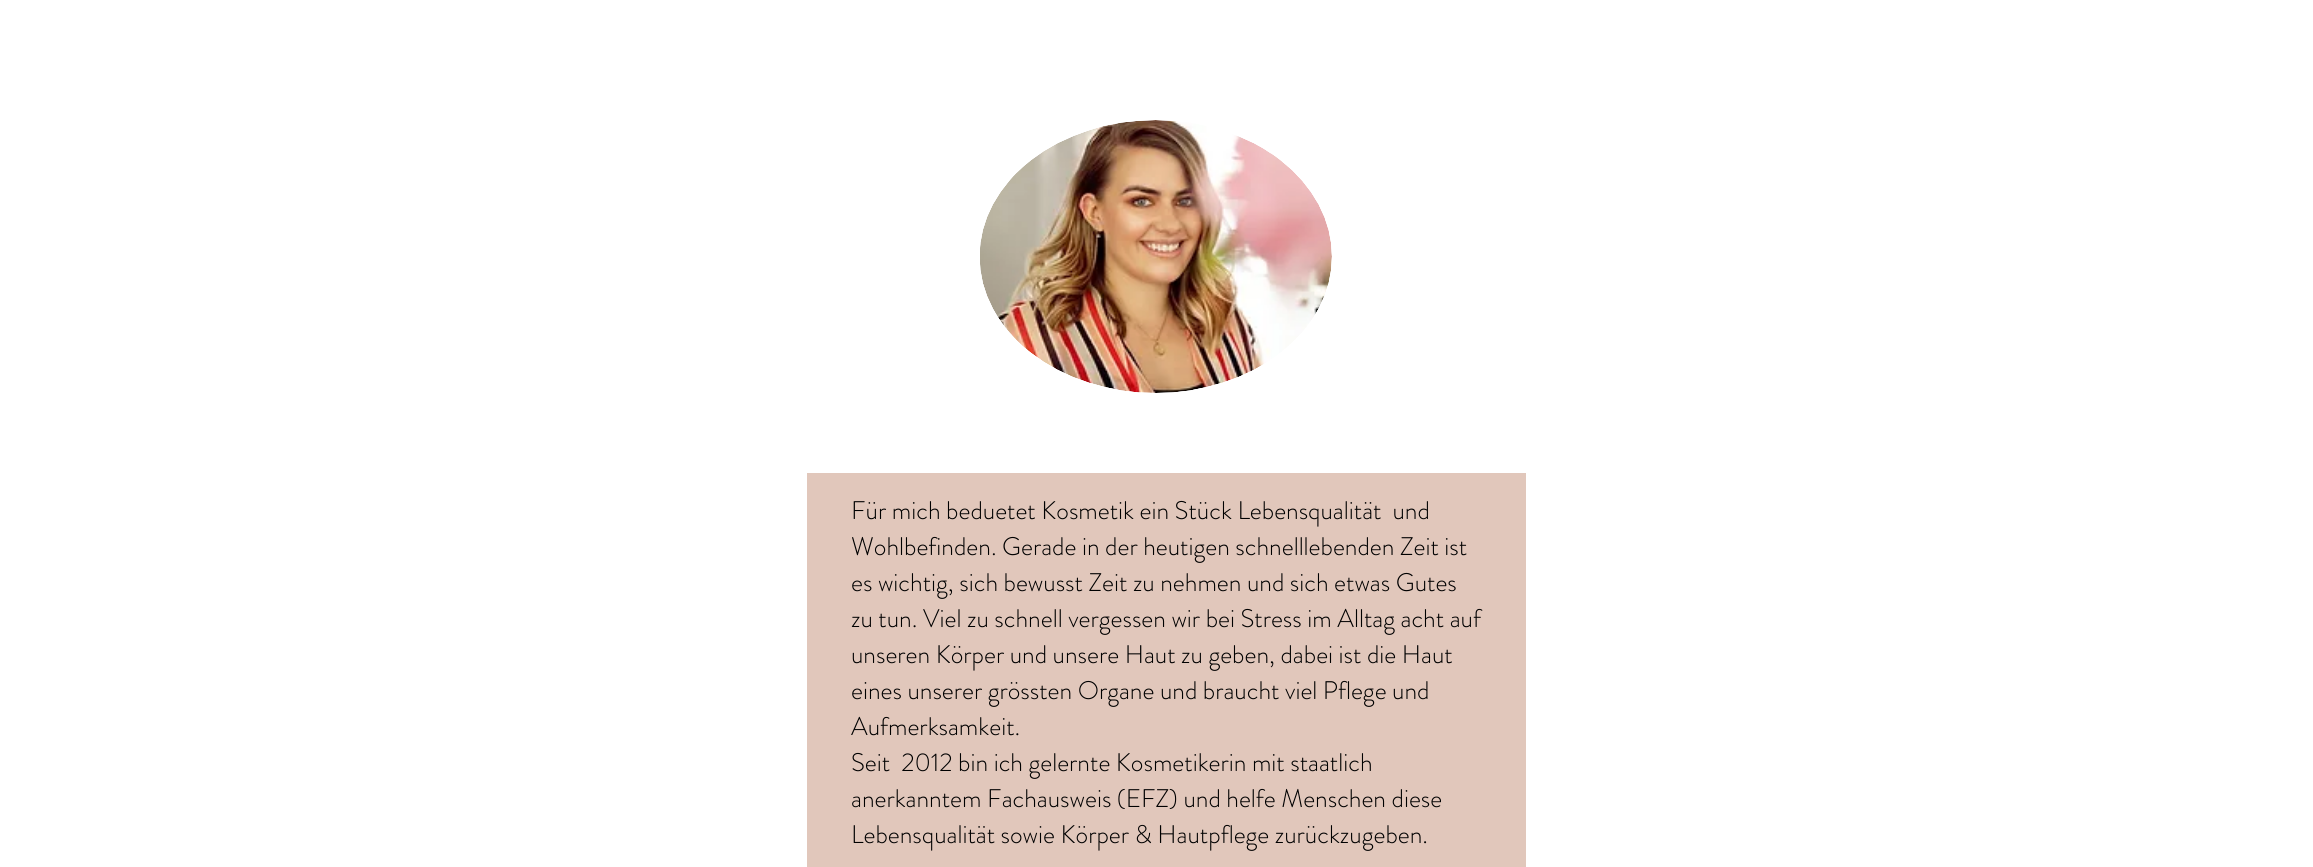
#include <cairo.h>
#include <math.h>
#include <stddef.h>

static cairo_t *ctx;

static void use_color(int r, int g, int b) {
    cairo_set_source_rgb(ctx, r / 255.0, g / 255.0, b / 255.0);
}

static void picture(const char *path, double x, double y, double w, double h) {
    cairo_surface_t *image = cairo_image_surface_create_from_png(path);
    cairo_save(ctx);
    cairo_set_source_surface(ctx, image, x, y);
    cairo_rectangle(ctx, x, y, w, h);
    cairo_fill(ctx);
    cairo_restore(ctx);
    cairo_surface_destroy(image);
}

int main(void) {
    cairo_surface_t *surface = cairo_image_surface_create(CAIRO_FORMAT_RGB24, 2313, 867);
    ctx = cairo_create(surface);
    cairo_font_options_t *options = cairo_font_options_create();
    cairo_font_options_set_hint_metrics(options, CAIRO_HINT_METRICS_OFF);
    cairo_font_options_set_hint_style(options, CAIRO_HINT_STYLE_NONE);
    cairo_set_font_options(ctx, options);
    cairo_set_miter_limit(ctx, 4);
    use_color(255, 255, 255);
    cairo_paint(ctx);
    picture("img1.png", 980, 120, 352, 273);
    use_color(225, 199, 187);
    cairo_rectangle(ctx, 807, 473, 719, 394);
    cairo_fill(ctx);
    cairo_select_font_face(ctx, "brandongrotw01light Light", CAIRO_FONT_SLANT_NORMAL, CAIRO_FONT_WEIGHT_NORMAL);
    cairo_set_font_size(ctx, 25.5);
    use_color(0, 0, 0);
    cairo_move_to(ctx, 851, 519);
    cairo_show_text(ctx, "Für mich beduetet Kosmetik ein Stück Lebensqualität  und");
    cairo_move_to(ctx, 851, 555);
    cairo_show_text(ctx, "Wohlbefinden. Gerade in der heutigen schnelllebenden Zeit ist");
    cairo_move_to(ctx, 851, 591);
    cairo_show_text(ctx, "es wichtig, sich bewusst Zeit zu nehmen und sich etwas Gutes");
    cairo_move_to(ctx, 851, 627);
    cairo_show_text(ctx, "zu tun. Viel zu schnell vergessen wir bei Stress im Alltag acht auf");
    cairo_move_to(ctx, 851, 663);
    cairo_show_text(ctx, "unseren Körper und unsere Haut zu geben, dabei ist die Haut");
    cairo_move_to(ctx, 851, 699);
    cairo_show_text(ctx, "eines unserer grössten Organe und braucht viel Pflege und");
    cairo_move_to(ctx, 851, 735);
    cairo_show_text(ctx, "Aufmerksamkeit.");
    cairo_move_to(ctx, 851, 771);
    cairo_show_text(ctx, "Seit  2012 bin ich gelernte Kosmetikerin mit staatlich");
    cairo_move_to(ctx, 851, 807);
    cairo_show_text(ctx, "anerkanntem Fachausweis (EFZ) und helfe Menschen diese");
    cairo_move_to(ctx, 851, 843);
    cairo_show_text(ctx, "Lebensqualität sowie Körper & Hautpflege zurückzugeben.");
    cairo_surface_write_to_png(surface, "result.png");
    cairo_font_options_destroy(options);
    cairo_destroy(ctx);
    cairo_surface_destroy(surface);
    return 0;
}
